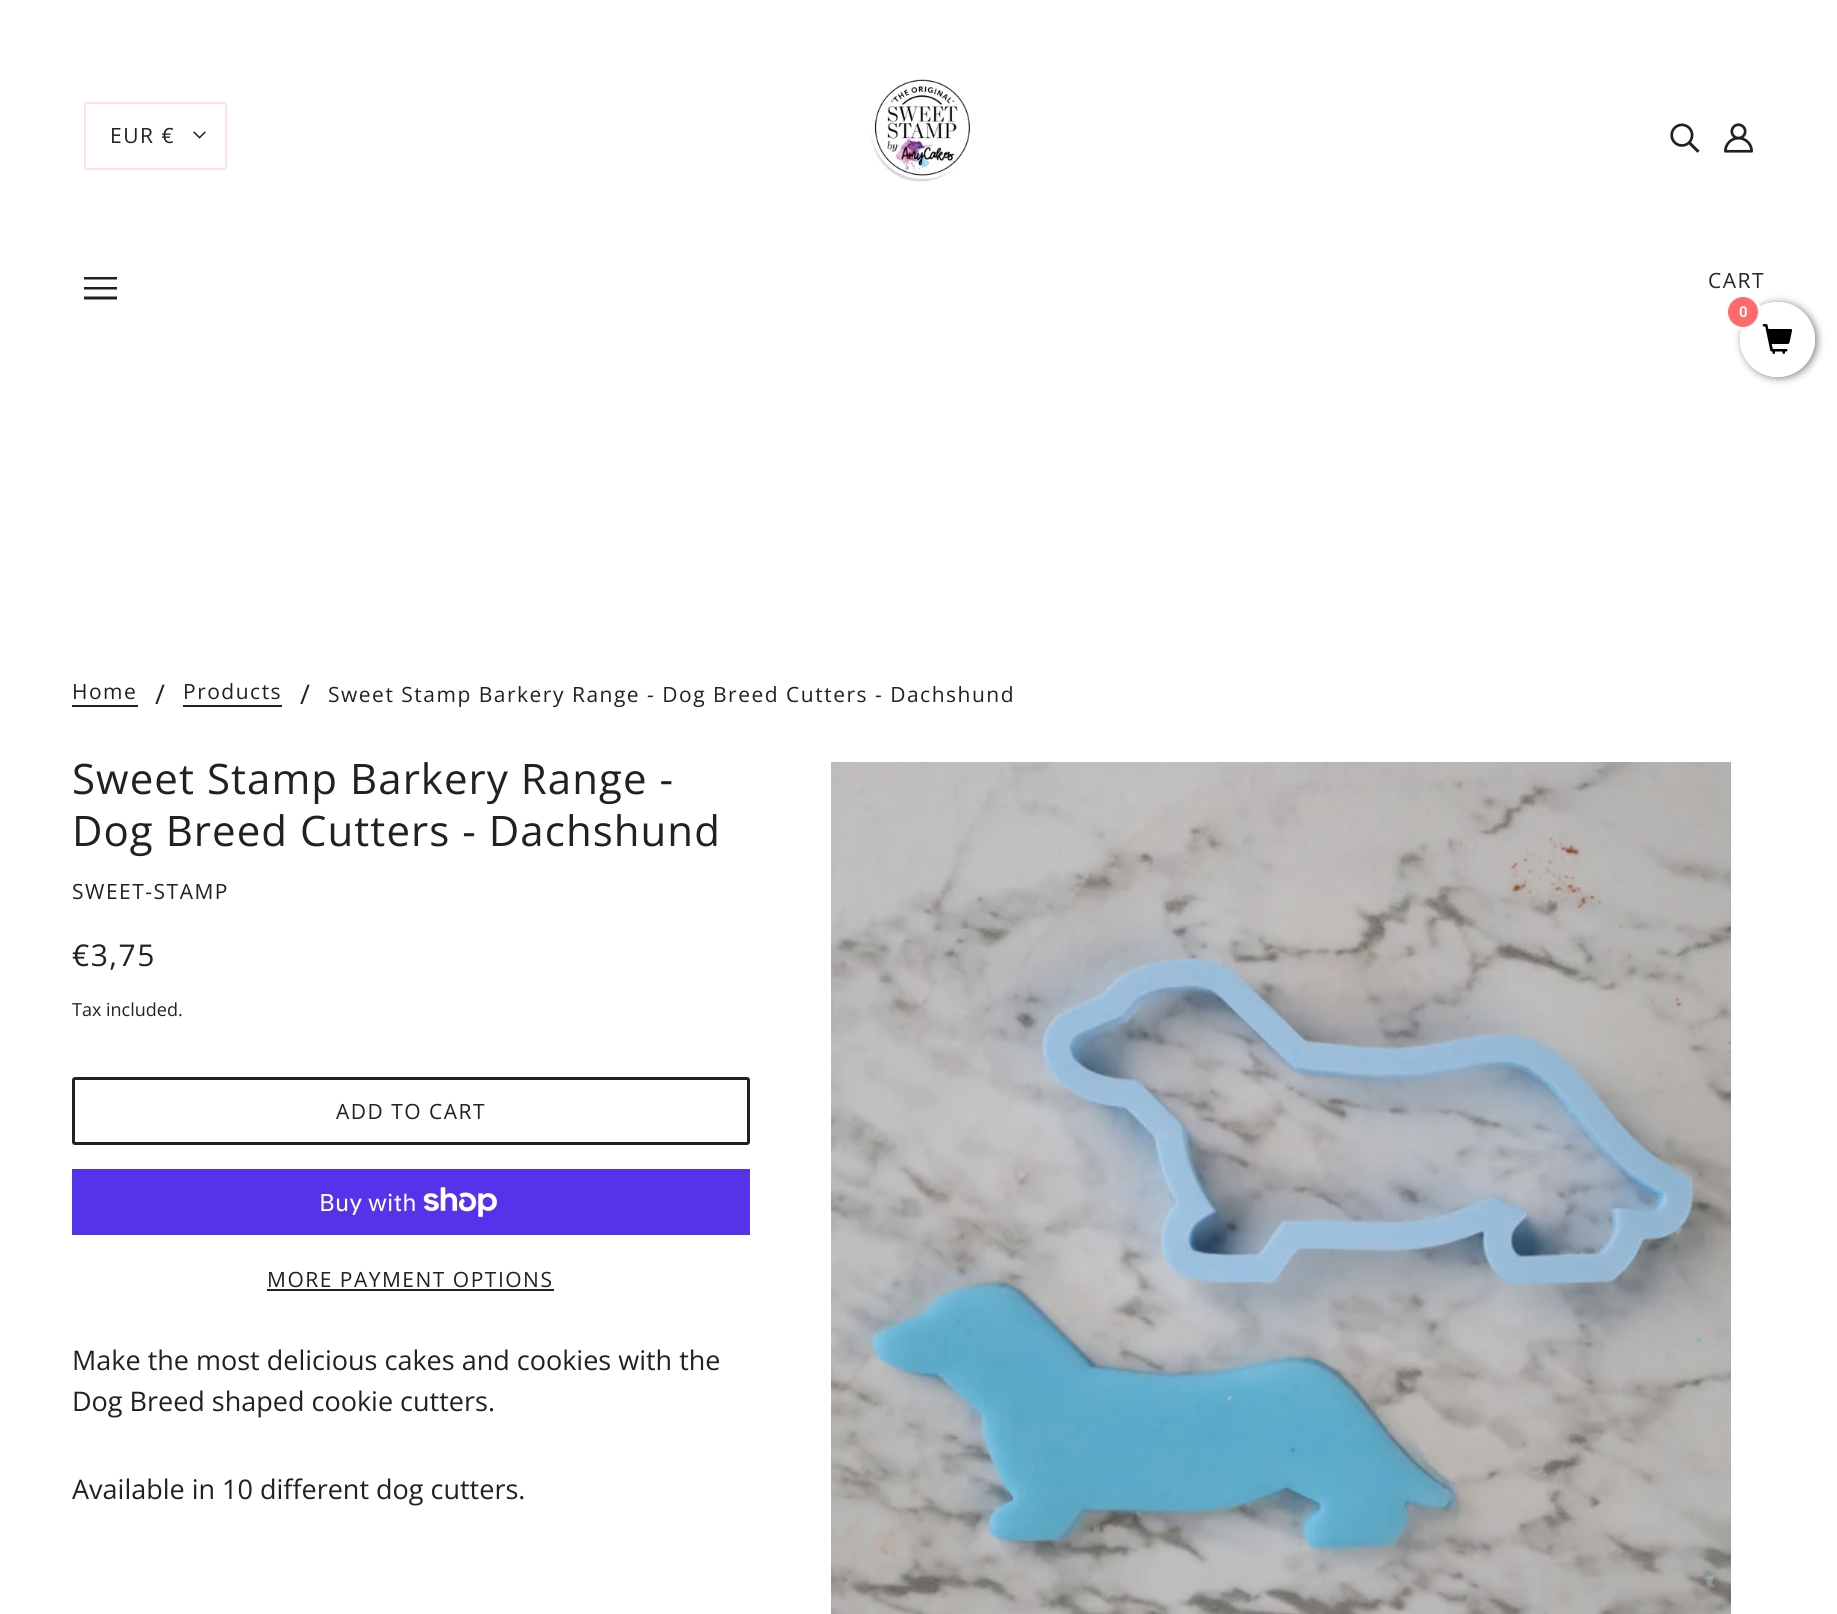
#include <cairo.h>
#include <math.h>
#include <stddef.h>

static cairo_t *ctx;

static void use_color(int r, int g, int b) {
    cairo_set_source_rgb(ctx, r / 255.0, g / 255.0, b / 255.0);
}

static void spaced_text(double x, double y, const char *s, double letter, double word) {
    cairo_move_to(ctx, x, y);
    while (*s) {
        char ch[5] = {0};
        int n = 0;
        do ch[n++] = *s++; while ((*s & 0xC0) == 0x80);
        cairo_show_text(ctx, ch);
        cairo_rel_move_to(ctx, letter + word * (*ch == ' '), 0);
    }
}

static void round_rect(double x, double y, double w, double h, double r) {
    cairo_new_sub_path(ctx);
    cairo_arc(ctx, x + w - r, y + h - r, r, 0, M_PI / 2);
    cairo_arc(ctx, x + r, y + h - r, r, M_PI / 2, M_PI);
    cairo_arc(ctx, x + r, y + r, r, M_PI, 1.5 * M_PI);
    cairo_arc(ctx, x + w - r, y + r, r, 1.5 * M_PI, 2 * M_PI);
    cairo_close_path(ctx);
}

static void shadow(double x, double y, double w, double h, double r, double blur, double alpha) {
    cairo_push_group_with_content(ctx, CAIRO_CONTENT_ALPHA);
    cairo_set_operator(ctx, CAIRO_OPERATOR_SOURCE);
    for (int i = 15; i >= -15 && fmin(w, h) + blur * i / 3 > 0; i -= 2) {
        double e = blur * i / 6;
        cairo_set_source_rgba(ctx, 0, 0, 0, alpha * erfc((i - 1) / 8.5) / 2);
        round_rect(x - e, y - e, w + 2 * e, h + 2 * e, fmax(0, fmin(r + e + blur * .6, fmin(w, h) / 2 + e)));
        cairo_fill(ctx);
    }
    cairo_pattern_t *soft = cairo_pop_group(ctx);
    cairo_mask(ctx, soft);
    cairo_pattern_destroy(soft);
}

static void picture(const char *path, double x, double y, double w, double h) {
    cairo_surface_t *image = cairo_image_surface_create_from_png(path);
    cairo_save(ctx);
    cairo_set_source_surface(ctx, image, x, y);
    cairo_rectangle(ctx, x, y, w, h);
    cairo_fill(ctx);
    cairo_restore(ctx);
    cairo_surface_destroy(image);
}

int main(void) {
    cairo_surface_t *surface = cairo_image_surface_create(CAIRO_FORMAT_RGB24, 1837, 1614);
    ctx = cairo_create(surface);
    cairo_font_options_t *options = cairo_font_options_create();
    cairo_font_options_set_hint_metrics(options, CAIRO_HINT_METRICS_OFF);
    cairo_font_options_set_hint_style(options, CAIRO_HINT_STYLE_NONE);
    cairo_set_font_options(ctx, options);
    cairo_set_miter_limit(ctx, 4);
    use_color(255, 255, 255);
    cairo_paint(ctx);
    round_rect(85, 103, 141, 66, 2);
    use_color(255, 223, 239);
    cairo_stroke(ctx);
    cairo_select_font_face(ctx, "Open Sans", CAIRO_FONT_SLANT_NORMAL, CAIRO_FONT_WEIGHT_NORMAL);
    cairo_set_font_size(ctx, 21);
    use_color(33, 33, 33);
    spaced_text(110, 143, "EUR €", 1.5, 0);
    picture("img1.png", 193, 131, 13, 8);
    picture("img2.png", 871, 78, 100, 104);
    picture("img3.png", 1670, 123, 30, 30);
    picture("img4.png", 1724, 123, 29, 30);
    cairo_new_path(ctx);
    cairo_move_to(ctx, 84, 279.5);
    cairo_line_to(ctx, 84, 277);
    cairo_line_to(ctx, 117, 277);
    cairo_line_to(ctx, 117, 279.5);
    cairo_close_path(ctx);
    cairo_move_to(ctx, 84, 289.5);
    cairo_line_to(ctx, 84, 287);
    cairo_line_to(ctx, 117, 287);
    cairo_line_to(ctx, 117, 289.5);
    cairo_close_path(ctx);
    cairo_move_to(ctx, 84, 299.5);
    cairo_line_to(ctx, 84, 296.5);
    cairo_line_to(ctx, 117, 296.5);
    cairo_line_to(ctx, 117, 299.5);
    cairo_close_path(ctx);
    cairo_fill(ctx);
    use_color(39, 39, 39);
    spaced_text(1708, 288, "CART", 1.5, 0);
    use_color(33, 33, 33);
    spaced_text(72, 699, "Home", 1.5, 0);
    cairo_rectangle(ctx, 72, 705, 66, 2);
    cairo_fill(ctx);
    cairo_set_font_size(ctx, 27);
    cairo_move_to(ctx, 155, 704);
    cairo_show_text(ctx, "/");
    cairo_set_font_size(ctx, 21);
    spaced_text(183, 699, "Products", 1.5, 0);
    cairo_rectangle(ctx, 183, 705, 99, 2);
    cairo_fill(ctx);
    cairo_set_font_size(ctx, 27);
    cairo_move_to(ctx, 300, 704);
    cairo_show_text(ctx, "/");
    cairo_set_font_size(ctx, 21);
    spaced_text(328, 702, "Sweet Stamp Barkery Range - Dog Breed Cutters - Dachshund", 1.5, 0);
    cairo_set_font_size(ctx, 42);
    spaced_text(72, 794, "Sweet Stamp Barkery Range -", 1.05, 0);
    spaced_text(72, 846, "Dog Breed Cutters - Dachshund", 1.05, 0);
    cairo_set_font_size(ctx, 21);
    spaced_text(72, 899, "SWEET-STAMP", 1.5, 0);
    cairo_set_font_size(ctx, 30);
    spaced_text(72, 966, "€3,75", 1.5, 0);
    cairo_set_font_size(ctx, 18);
    cairo_move_to(ctx, 72, 1016);
    cairo_show_text(ctx, "Tax included.");
    round_rect(73.5, 1078.5, 675, 65, 1.5);
    cairo_set_line_width(ctx, 3);
    cairo_stroke(ctx);
    cairo_set_font_size(ctx, 21);
    spaced_text(336, 1119, "ADD TO CART", 1.5, 0);
    use_color(84, 51, 235);
    cairo_rectangle(ctx, 72, 1169, 678, 66);
    cairo_fill(ctx);
    cairo_select_font_face(ctx, "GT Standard", CAIRO_FONT_SLANT_NORMAL, CAIRO_FONT_WEIGHT_NORMAL);
    cairo_set_font_size(ctx, 24);
    use_color(255, 255, 255);
    cairo_move_to(ctx, 319, 1211);
    cairo_show_text(ctx, "Buy with");
    picture("img5.png", 423, 1187, 74, 30);
    cairo_select_font_face(ctx, "Open Sans", CAIRO_FONT_SLANT_NORMAL, CAIRO_FONT_WEIGHT_NORMAL);
    cairo_set_font_size(ctx, 21);
    use_color(33, 33, 33);
    spaced_text(267, 1287, "MORE PAYMENT OPTIONS", 1.5, 0);
    cairo_rectangle(ctx, 267, 1289, 287, 2);
    cairo_fill(ctx);
    picture("img6.png", 831, 762, 900, 852);
    cairo_set_font_size(ctx, 27);
    cairo_move_to(ctx, 72, 1370);
    cairo_show_text(ctx, "Make the most delicious cakes and cookies with the");
    cairo_move_to(ctx, 72, 1411);
    cairo_show_text(ctx, "Dog Breed shaped cookie cutters.");
    cairo_move_to(ctx, 72, 1499);
    cairo_show_text(ctx, "Available in 10 different dog cutters.");
    cairo_save(ctx);
    cairo_set_fill_rule(ctx, CAIRO_FILL_RULE_EVEN_ODD);
    cairo_new_path(ctx);
    cairo_move_to(ctx, 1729, 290);
    cairo_line_to(ctx, 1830, 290);
    cairo_line_to(ctx, 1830, 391);
    cairo_line_to(ctx, 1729, 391);
    cairo_close_path(ctx);
    cairo_move_to(ctx, 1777.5, 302);
    cairo_curve_to(ctx, 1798, 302, 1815, 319, 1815, 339.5);
    cairo_curve_to(ctx, 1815, 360, 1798, 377, 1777.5, 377);
    cairo_curve_to(ctx, 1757, 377, 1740, 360, 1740, 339.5);
    cairo_curve_to(ctx, 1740, 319, 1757, 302, 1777.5, 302);
    cairo_close_path(ctx);
    cairo_clip(ctx);
    use_color(128, 128, 128);
    shadow(1742, 303, 75, 75, 37.5, 4, 1);
    cairo_restore(ctx);
    cairo_set_source_rgba(ctx, 1, 1, 1, 0.9);
    cairo_arc(ctx, 1777.5, 339.5, 37.5, 0, 2 * M_PI);
    cairo_fill(ctx);
    use_color(255, 107, 107);
    cairo_arc(ctx, 1743, 312, 16.5, 0, 2 * M_PI);
    cairo_fill_preserve(ctx);
    use_color(255, 255, 255);
    cairo_stroke(ctx);
    cairo_select_font_face(ctx, "Roboto", CAIRO_FONT_SLANT_NORMAL, CAIRO_FONT_WEIGHT_BOLD);
    cairo_set_font_size(ctx, 15);
    cairo_move_to(ctx, 1739, 317);
    cairo_show_text(ctx, "0");
    picture("img7.png", 1762, 324, 31, 30);
    cairo_surface_write_to_png(surface, "result.png");
    cairo_font_options_destroy(options);
    cairo_destroy(ctx);
    cairo_surface_destroy(surface);
    return 0;
}
